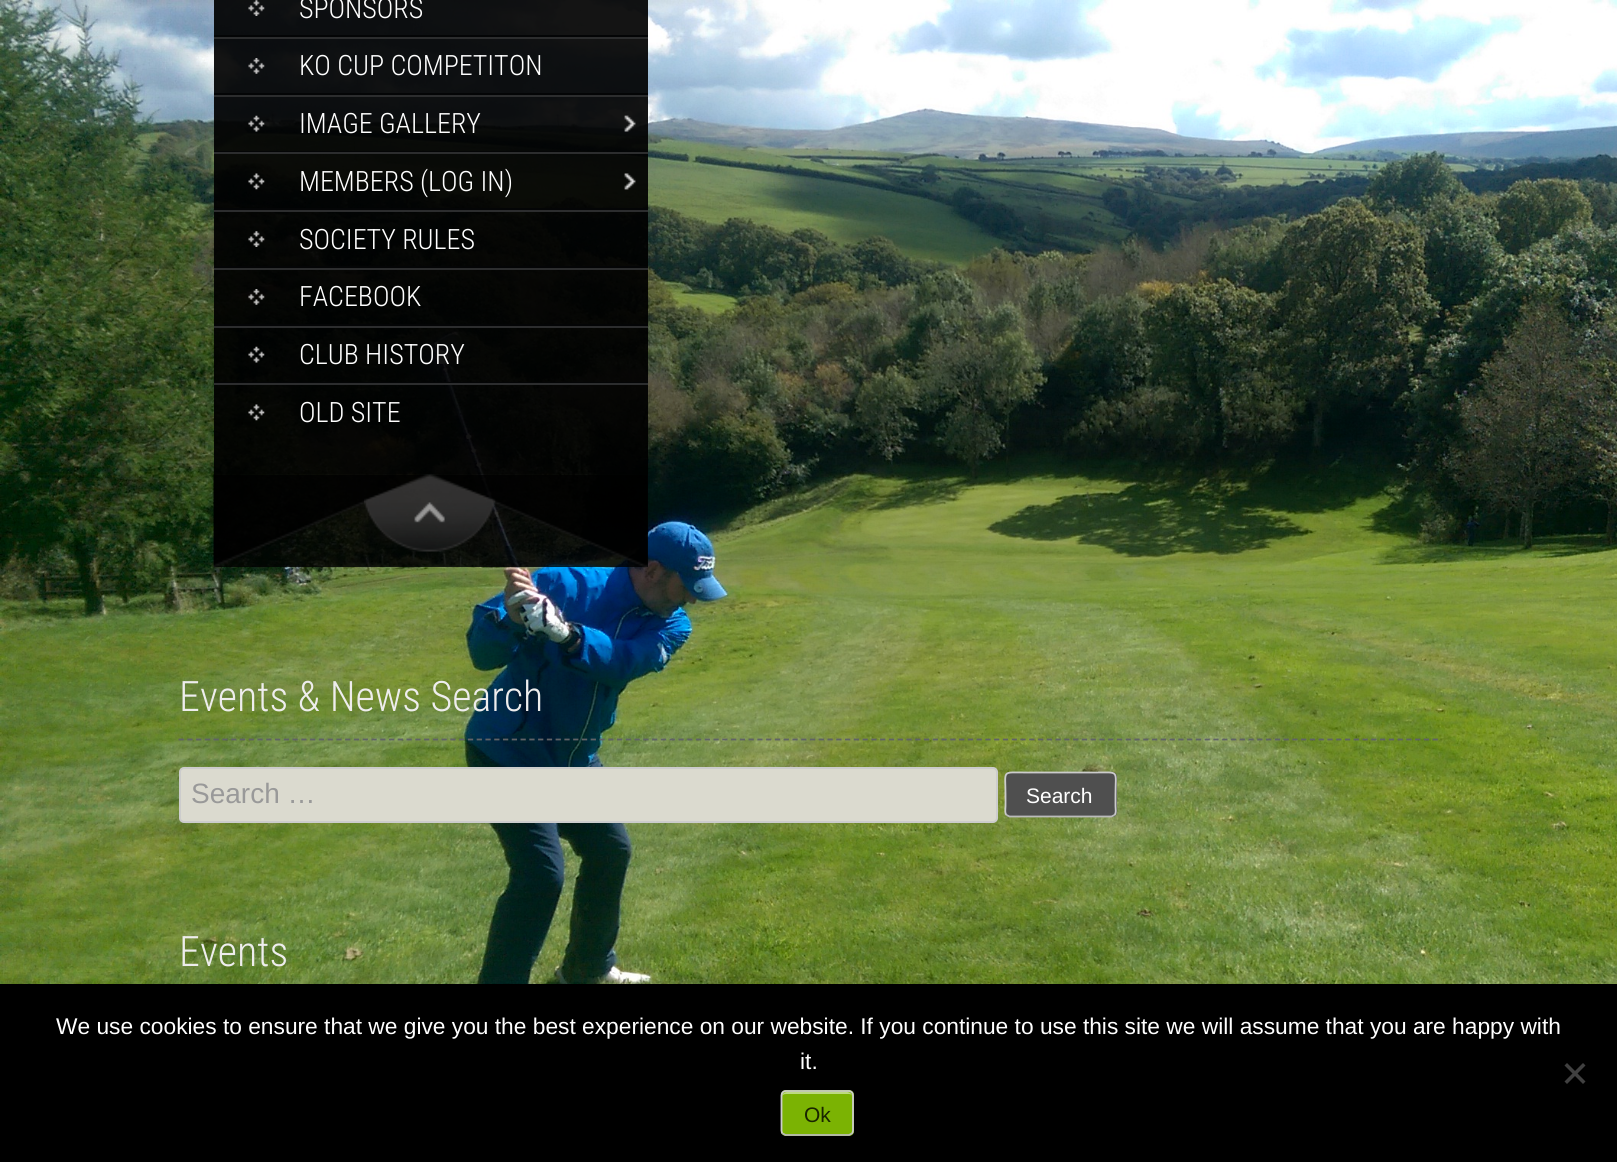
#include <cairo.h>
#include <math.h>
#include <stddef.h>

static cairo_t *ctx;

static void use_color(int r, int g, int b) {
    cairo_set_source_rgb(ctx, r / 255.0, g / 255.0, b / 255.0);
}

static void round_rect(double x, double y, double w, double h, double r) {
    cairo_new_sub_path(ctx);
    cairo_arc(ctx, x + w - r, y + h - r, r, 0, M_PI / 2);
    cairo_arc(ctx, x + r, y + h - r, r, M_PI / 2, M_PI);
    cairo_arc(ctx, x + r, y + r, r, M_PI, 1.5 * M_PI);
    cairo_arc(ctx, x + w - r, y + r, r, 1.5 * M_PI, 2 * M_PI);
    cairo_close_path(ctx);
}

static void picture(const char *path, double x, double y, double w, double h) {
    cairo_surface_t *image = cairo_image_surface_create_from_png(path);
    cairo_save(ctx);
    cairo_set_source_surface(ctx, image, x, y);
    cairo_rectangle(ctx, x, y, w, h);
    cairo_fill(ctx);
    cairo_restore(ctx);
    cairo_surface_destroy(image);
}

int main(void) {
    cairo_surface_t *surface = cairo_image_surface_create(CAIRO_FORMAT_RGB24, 1617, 1162);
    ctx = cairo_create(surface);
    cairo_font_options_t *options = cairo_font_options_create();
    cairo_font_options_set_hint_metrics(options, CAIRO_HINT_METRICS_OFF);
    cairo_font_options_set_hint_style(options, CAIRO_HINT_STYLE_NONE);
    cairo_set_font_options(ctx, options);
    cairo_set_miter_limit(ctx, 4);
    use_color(255, 255, 255);
    cairo_paint(ctx);
    picture("img1.png", 0, 0, 1617, 984);
    cairo_set_source_rgba(ctx, 0, 0, 0, 0.8);
    cairo_rectangle(ctx, 214, 0, 434, 567);
    cairo_fill(ctx);
    cairo_set_source_rgba(ctx, 0, 0, 0, 0.6);
    cairo_rectangle(ctx, 214, 0, 434, 474);
    cairo_fill(ctx);
    use_color(4, 5, 6);
    cairo_rectangle(ctx, 214, 35, 434, 2);
    cairo_fill(ctx);
    picture("img2.png", 248, 0, 17, 16);
    cairo_select_font_face(ctx, "Roboto Condensed Light", CAIRO_FONT_SLANT_NORMAL, CAIRO_FONT_WEIGHT_NORMAL);
    cairo_set_font_size(ctx, 28);
    use_color(255, 255, 255);
    cairo_move_to(ctx, 299, 18);
    cairo_show_text(ctx, "SPONSORS");
    use_color(44, 45, 46);
    cairo_rectangle(ctx, 214, 37, 434, 2);
    cairo_fill(ctx);
    use_color(4, 5, 6);
    cairo_rectangle(ctx, 214, 93, 434, 2);
    cairo_fill(ctx);
    picture("img3.png", 248, 58, 17, 16);
    use_color(255, 255, 255);
    cairo_move_to(ctx, 299, 75);
    cairo_show_text(ctx, "KO CUP COMPETITON");
    picture("img4.png", 624, 115, 12, 17);
    use_color(44, 45, 46);
    cairo_rectangle(ctx, 214, 95, 434, 2);
    cairo_fill(ctx);
    use_color(4, 5, 6);
    cairo_rectangle(ctx, 214, 151, 365, 1);
    cairo_fill(ctx);
    picture("img5.png", 248, 115, 17, 17);
    use_color(255, 255, 255);
    cairo_move_to(ctx, 299, 133);
    cairo_show_text(ctx, "IMAGE GALLERY");
    picture("img6.png", 624, 173, 12, 17);
    use_color(44, 45, 46);
    cairo_rectangle(ctx, 214, 152, 434, 2);
    cairo_fill(ctx);
    use_color(4, 5, 6);
    cairo_rectangle(ctx, 214, 208, 434, 2);
    cairo_fill(ctx);
    picture("img7.png", 248, 173, 17, 17);
    use_color(255, 255, 255);
    cairo_move_to(ctx, 299, 191);
    cairo_show_text(ctx, "MEMBERS (LOG IN)");
    use_color(44, 45, 46);
    cairo_rectangle(ctx, 214, 210, 434, 2);
    cairo_fill(ctx);
    use_color(4, 5, 6);
    cairo_rectangle(ctx, 214, 266, 434, 2);
    cairo_fill(ctx);
    picture("img8.png", 248, 231, 17, 16);
    use_color(255, 255, 255);
    cairo_move_to(ctx, 299, 249);
    cairo_show_text(ctx, "SOCIETY RULES");
    use_color(44, 45, 46);
    cairo_rectangle(ctx, 214, 268, 434, 2);
    cairo_fill(ctx);
    use_color(4, 5, 6);
    cairo_rectangle(ctx, 214, 324, 434, 2);
    cairo_fill(ctx);
    picture("img9.png", 248, 289, 17, 16);
    use_color(255, 255, 255);
    cairo_move_to(ctx, 299, 306);
    cairo_show_text(ctx, "FACEBOOK");
    use_color(44, 45, 46);
    cairo_rectangle(ctx, 214, 326, 434, 2);
    cairo_fill(ctx);
    use_color(4, 5, 6);
    cairo_rectangle(ctx, 214, 382, 434, 1);
    cairo_fill(ctx);
    picture("img10.png", 248, 346, 17, 17);
    use_color(255, 255, 255);
    cairo_move_to(ctx, 299, 364);
    cairo_show_text(ctx, "CLUB HISTORY");
    use_color(44, 45, 46);
    cairo_rectangle(ctx, 214, 383, 434, 2);
    cairo_fill(ctx);
    picture("img11.png", 248, 404, 17, 17);
    use_color(255, 255, 255);
    cairo_move_to(ctx, 299, 422);
    cairo_show_text(ctx, "OLD SITE");
    picture("img12.png", 213, 474, 435, 94);
    picture("img13.png", 364, 474, 132, 78);
    cairo_new_path(ctx);
    cairo_move_to(ctx, 178.5, 739.5);
    cairo_line_to(ctx, 1438.5, 739.5);
    use_color(96, 98, 102);
    cairo_set_line_width(ctx, 1.8);
    cairo_set_dash(ctx, (double[]){5.25, 3.52}, 2, 0);
    cairo_stroke(ctx);
    cairo_set_font_size(ctx, 42);
    use_color(238, 237, 237);
    cairo_move_to(ctx, 179, 711);
    cairo_show_text(ctx, "Events & News Search");
    use_color(219, 218, 207);
    round_rect(180, 768, 817, 54, 4);
    cairo_fill_preserve(ctx);
    use_color(204, 204, 204);
    cairo_set_line_width(ctx, 2);
    cairo_set_dash(ctx, NULL, 0, 0);
    cairo_stroke(ctx);
    cairo_select_font_face(ctx, "Liberation Sans", CAIRO_FONT_SLANT_NORMAL, CAIRO_FONT_WEIGHT_NORMAL);
    cairo_set_font_size(ctx, 28);
    use_color(153, 153, 153);
    cairo_move_to(ctx, 191, 803);
    cairo_show_text(ctx, "Search …");
    use_color(79, 79, 79);
    round_rect(1005, 772, 112, 45, 5);
    cairo_fill(ctx);
    cairo_new_path(ctx);
    cairo_move_to(ctx, 1114.5, 815);
    cairo_line_to(ctx, 1111.5, 816.5);
    cairo_line_to(ctx, 1009.5, 816.5);
    cairo_line_to(ctx, 1006.5, 815);
    use_color(187, 187, 187);
    cairo_set_line_width(ctx, 1.8);
    cairo_stroke(ctx);
    cairo_new_path(ctx);
    cairo_move_to(ctx, 1006.5, 815);
    cairo_curve_to(ctx, 1004.5, 813, 1005.5, 808.5, 1005.5, 806);
    cairo_line_to(ctx, 1005.5, 794.5);
    cairo_curve_to(ctx, 1005.5, 769.5, 1001, 772.5, 1026.5, 772.5);
    cairo_line_to(ctx, 1094.5, 772.5);
    cairo_curve_to(ctx, 1120, 772.5, 1115.5, 769.5, 1115.5, 794.5);
    cairo_line_to(ctx, 1115.5, 806);
    cairo_curve_to(ctx, 1115.5, 808.5, 1116.5, 813, 1114.5, 815);
    use_color(204, 204, 204);
    cairo_stroke(ctx);
    cairo_set_font_size(ctx, 21);
    use_color(255, 255, 255);
    cairo_move_to(ctx, 1026, 803);
    cairo_show_text(ctx, "Search");
    cairo_select_font_face(ctx, "Roboto Condensed Light", CAIRO_FONT_SLANT_NORMAL, CAIRO_FONT_WEIGHT_NORMAL);
    cairo_set_font_size(ctx, 42);
    use_color(238, 237, 237);
    cairo_move_to(ctx, 179, 966);
    cairo_show_text(ctx, "Events");
    use_color(0, 0, 0);
    cairo_rectangle(ctx, 0, 984, 1617, 178);
    cairo_fill(ctx);
    cairo_select_font_face(ctx, "Liberation Sans", CAIRO_FONT_SLANT_NORMAL, CAIRO_FONT_WEIGHT_NORMAL);
    cairo_set_font_size(ctx, 22.75);
    use_color(255, 255, 255);
    cairo_move_to(ctx, 56, 1034);
    cairo_show_text(ctx, "We use cookies to ensure that we give you the best experience on our website. If you continue to use this site we will assume that you are happy with");
    cairo_move_to(ctx, 800, 1069);
    cairo_show_text(ctx, "it.");
    use_color(64, 64, 64);
    cairo_new_path(ctx);
    cairo_move_to(ctx, 1583, 1063);
    cairo_line_to(ctx, 1585.5, 1065.5);
    cairo_line_to(ctx, 1567, 1084);
    cairo_line_to(ctx, 1564.5, 1081.5);
    cairo_close_path(ctx);
    cairo_fill(ctx);
    cairo_new_path(ctx);
    cairo_move_to(ctx, 1564.5, 1065.5);
    cairo_line_to(ctx, 1567, 1063);
    cairo_line_to(ctx, 1585.5, 1081.5);
    cairo_line_to(ctx, 1583, 1084);
    cairo_close_path(ctx);
    cairo_fill(ctx);
    use_color(123, 179, 3);
    round_rect(781, 1090, 73, 46, 5);
    cairo_fill(ctx);
    use_color(189, 217, 129);
    cairo_new_path(ctx);
    cairo_move_to(ctx, 786, 1094);
    cairo_line_to(ctx, 849, 1094);
    cairo_curve_to(ctx, 851, 1094, 852, 1095, 852, 1097);
    cairo_curve_to(ctx, 852, 1090, 843, 1092, 838, 1092);
    cairo_line_to(ctx, 796, 1092);
    cairo_curve_to(ctx, 791, 1092, 782, 1090, 782, 1097);
    cairo_curve_to(ctx, 782, 1095, 784, 1094, 786, 1094);
    cairo_close_path(ctx);
    cairo_fill(ctx);
    cairo_new_path(ctx);
    cairo_move_to(ctx, 852, 1133.5);
    cairo_line_to(ctx, 849, 1135);
    cairo_line_to(ctx, 785.5, 1135);
    cairo_line_to(ctx, 782.5, 1133.5);
    use_color(187, 187, 187);
    cairo_stroke(ctx);
    cairo_new_path(ctx);
    cairo_move_to(ctx, 782.5, 1133.5);
    cairo_curve_to(ctx, 782, 1133, 781.5, 1131.5, 781.5, 1130.5);
    cairo_line_to(ctx, 781.5, 1095.5);
    cairo_curve_to(ctx, 781.5, 1094.5, 782, 1093, 782.5, 1092.5);
    cairo_curve_to(ctx, 783.5, 1091.5, 784.5, 1091, 786, 1091);
    cairo_line_to(ctx, 849, 1091);
    cairo_curve_to(ctx, 850, 1091, 851, 1091.5, 852, 1092.5);
    cairo_curve_to(ctx, 852.5, 1093, 853, 1094.5, 853, 1095.5);
    cairo_line_to(ctx, 853, 1130.5);
    cairo_curve_to(ctx, 853, 1131.5, 852.5, 1133, 852, 1133.5);
    use_color(204, 204, 204);
    cairo_stroke(ctx);
    cairo_set_font_size(ctx, 21);
    use_color(25, 36, 1);
    cairo_move_to(ctx, 804, 1122);
    cairo_show_text(ctx, "Ok");
    cairo_surface_write_to_png(surface, "result.png");
    cairo_font_options_destroy(options);
    cairo_destroy(ctx);
    cairo_surface_destroy(surface);
    return 0;
}
